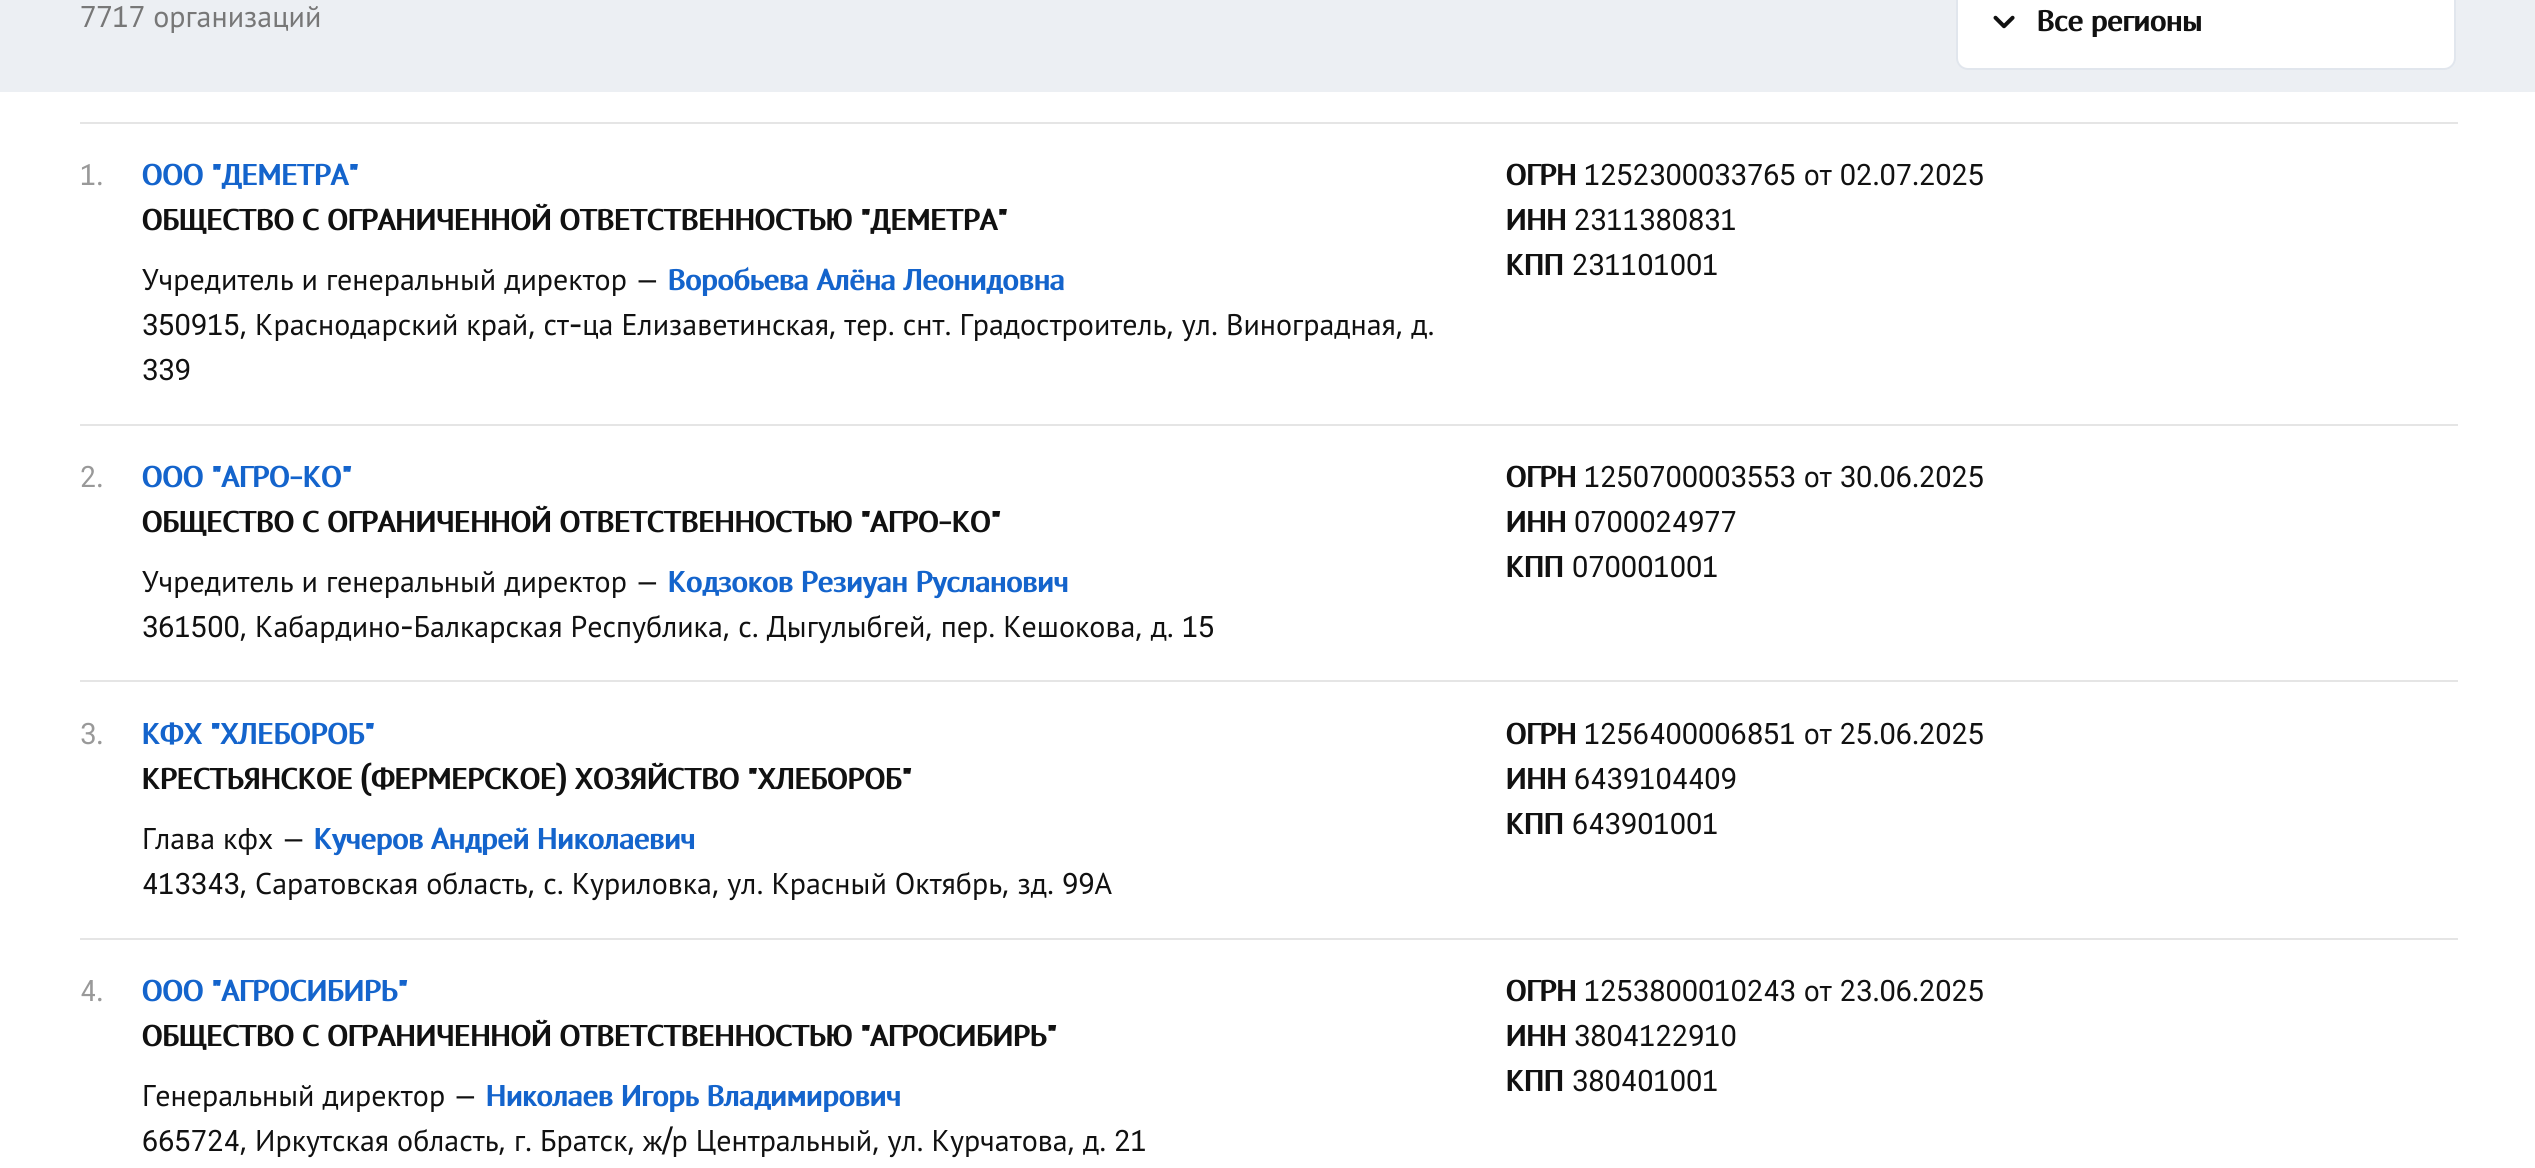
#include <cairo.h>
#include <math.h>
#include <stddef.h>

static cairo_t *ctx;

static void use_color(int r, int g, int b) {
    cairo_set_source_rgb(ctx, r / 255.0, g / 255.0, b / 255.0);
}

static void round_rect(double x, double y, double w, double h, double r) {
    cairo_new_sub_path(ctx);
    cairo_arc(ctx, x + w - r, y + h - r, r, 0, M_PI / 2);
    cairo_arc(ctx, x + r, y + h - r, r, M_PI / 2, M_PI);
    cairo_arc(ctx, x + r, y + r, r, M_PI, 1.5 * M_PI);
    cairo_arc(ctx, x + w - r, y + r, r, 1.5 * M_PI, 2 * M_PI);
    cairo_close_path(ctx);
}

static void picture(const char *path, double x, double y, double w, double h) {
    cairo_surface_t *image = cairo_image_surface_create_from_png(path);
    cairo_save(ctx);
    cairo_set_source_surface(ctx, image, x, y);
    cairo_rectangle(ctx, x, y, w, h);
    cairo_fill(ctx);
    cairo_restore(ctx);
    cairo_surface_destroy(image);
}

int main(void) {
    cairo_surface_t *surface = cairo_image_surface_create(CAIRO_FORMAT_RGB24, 2535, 1168);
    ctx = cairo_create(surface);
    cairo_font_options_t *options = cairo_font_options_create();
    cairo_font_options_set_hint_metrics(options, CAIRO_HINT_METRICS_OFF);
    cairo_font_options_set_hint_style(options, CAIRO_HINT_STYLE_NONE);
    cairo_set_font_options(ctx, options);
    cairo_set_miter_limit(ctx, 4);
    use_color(255, 255, 255);
    cairo_paint(ctx);
    use_color(236, 239, 243);
    cairo_rectangle(ctx, 0, 0, 2535, 92);
    cairo_fill(ctx);
    cairo_select_font_face(ctx, "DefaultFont", CAIRO_FONT_SLANT_NORMAL, CAIRO_FONT_WEIGHT_NORMAL);
    cairo_set_font_size(ctx, 30);
    use_color(119, 119, 119);
    cairo_move_to(ctx, 80, 27);
    cairo_show_text(ctx, "7717 организаций");
    use_color(255, 255, 255);
    round_rect(1957, -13, 498, 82, 11);
    cairo_fill_preserve(ctx);
    use_color(225, 230, 237);
    cairo_stroke(ctx);
    picture("img1.png", 1993, 15, 22, 14);
    cairo_select_font_face(ctx, "DefaultFont", CAIRO_FONT_SLANT_NORMAL, CAIRO_FONT_WEIGHT_BOLD);
    use_color(17, 17, 17);
    cairo_move_to(ctx, 2037, 31);
    cairo_show_text(ctx, "Все регионы");
    use_color(229, 229, 229);
    cairo_rectangle(ctx, 80, 122, 2378, 2);
    cairo_fill(ctx);
    cairo_rectangle(ctx, 80, 424, 2378, 2);
    cairo_fill(ctx);
    cairo_select_font_face(ctx, "DefaultFont", CAIRO_FONT_SLANT_NORMAL, CAIRO_FONT_WEIGHT_NORMAL);
    use_color(153, 153, 153);
    cairo_move_to(ctx, 80, 185);
    cairo_show_text(ctx, "1.");
    cairo_select_font_face(ctx, "DefaultFont", CAIRO_FONT_SLANT_NORMAL, CAIRO_FONT_WEIGHT_BOLD);
    use_color(20, 100, 204);
    cairo_move_to(ctx, 142, 185);
    cairo_show_text(ctx, "ООО \"ДЕМЕТРА\"");
    use_color(17, 17, 17);
    cairo_move_to(ctx, 142, 230);
    cairo_show_text(ctx, "ОБЩЕСТВО С ОГРАНИЧЕННОЙ ОТВЕТСТВЕННОСТЬЮ \"ДЕМЕТРА\"");
    cairo_select_font_face(ctx, "DefaultFont", CAIRO_FONT_SLANT_NORMAL, CAIRO_FONT_WEIGHT_NORMAL);
    cairo_move_to(ctx, 142, 290);
    cairo_show_text(ctx, "Учредитель и генеральный директор —");
    cairo_select_font_face(ctx, "DefaultFont", CAIRO_FONT_SLANT_NORMAL, CAIRO_FONT_WEIGHT_BOLD);
    use_color(20, 100, 204);
    cairo_move_to(ctx, 668, 290);
    cairo_show_text(ctx, "Воробьева Алёна Леонидовна");
    cairo_select_font_face(ctx, "DefaultFont", CAIRO_FONT_SLANT_NORMAL, CAIRO_FONT_WEIGHT_NORMAL);
    use_color(17, 17, 17);
    cairo_move_to(ctx, 142, 335);
    cairo_show_text(ctx, "350915, Краснодарский край, ст-ца Елизаветинская, тер. снт. Градостроитель, ул. Виноградная, д.");
    cairo_move_to(ctx, 142, 380);
    cairo_show_text(ctx, "339");
    cairo_select_font_face(ctx, "DefaultFont", CAIRO_FONT_SLANT_NORMAL, CAIRO_FONT_WEIGHT_BOLD);
    cairo_move_to(ctx, 1506, 185);
    cairo_show_text(ctx, "ОГРН");
    cairo_select_font_face(ctx, "DefaultFont", CAIRO_FONT_SLANT_NORMAL, CAIRO_FONT_WEIGHT_NORMAL);
    cairo_move_to(ctx, 1584, 185);
    cairo_show_text(ctx, "1252300033765 от 02.07.2025");
    cairo_select_font_face(ctx, "DefaultFont", CAIRO_FONT_SLANT_NORMAL, CAIRO_FONT_WEIGHT_BOLD);
    cairo_move_to(ctx, 1506, 230);
    cairo_show_text(ctx, "ИНН");
    cairo_select_font_face(ctx, "DefaultFont", CAIRO_FONT_SLANT_NORMAL, CAIRO_FONT_WEIGHT_NORMAL);
    cairo_move_to(ctx, 1574, 230);
    cairo_show_text(ctx, "2311380831");
    cairo_select_font_face(ctx, "DefaultFont", CAIRO_FONT_SLANT_NORMAL, CAIRO_FONT_WEIGHT_BOLD);
    cairo_move_to(ctx, 1506, 275);
    cairo_show_text(ctx, "КПП");
    cairo_select_font_face(ctx, "DefaultFont", CAIRO_FONT_SLANT_NORMAL, CAIRO_FONT_WEIGHT_NORMAL);
    cairo_move_to(ctx, 1572, 275);
    cairo_show_text(ctx, "231101001");
    use_color(229, 229, 229);
    cairo_rectangle(ctx, 80, 680, 2378, 2);
    cairo_fill(ctx);
    use_color(153, 153, 153);
    cairo_move_to(ctx, 80, 487);
    cairo_show_text(ctx, "2.");
    cairo_select_font_face(ctx, "DefaultFont", CAIRO_FONT_SLANT_NORMAL, CAIRO_FONT_WEIGHT_BOLD);
    use_color(20, 100, 204);
    cairo_move_to(ctx, 142, 487);
    cairo_show_text(ctx, "ООО \"АГРО-КО\"");
    use_color(17, 17, 17);
    cairo_move_to(ctx, 142, 532);
    cairo_show_text(ctx, "ОБЩЕСТВО С ОГРАНИЧЕННОЙ ОТВЕТСТВЕННОСТЬЮ \"АГРО-КО\"");
    cairo_select_font_face(ctx, "DefaultFont", CAIRO_FONT_SLANT_NORMAL, CAIRO_FONT_WEIGHT_NORMAL);
    cairo_move_to(ctx, 142, 592);
    cairo_show_text(ctx, "Учредитель и генеральный директор —");
    cairo_select_font_face(ctx, "DefaultFont", CAIRO_FONT_SLANT_NORMAL, CAIRO_FONT_WEIGHT_BOLD);
    use_color(20, 100, 204);
    cairo_move_to(ctx, 668, 592);
    cairo_show_text(ctx, "Кодзоков Резиуан Русланович");
    cairo_select_font_face(ctx, "DefaultFont", CAIRO_FONT_SLANT_NORMAL, CAIRO_FONT_WEIGHT_NORMAL);
    use_color(17, 17, 17);
    cairo_move_to(ctx, 142, 637);
    cairo_show_text(ctx, "361500, Кабардино-Балкарская Республика, с. Дыгулыбгей, пер. Кешокова, д. 15");
    cairo_select_font_face(ctx, "DefaultFont", CAIRO_FONT_SLANT_NORMAL, CAIRO_FONT_WEIGHT_BOLD);
    cairo_move_to(ctx, 1506, 487);
    cairo_show_text(ctx, "ОГРН");
    cairo_select_font_face(ctx, "DefaultFont", CAIRO_FONT_SLANT_NORMAL, CAIRO_FONT_WEIGHT_NORMAL);
    cairo_move_to(ctx, 1584, 487);
    cairo_show_text(ctx, "1250700003553 от 30.06.2025");
    cairo_select_font_face(ctx, "DefaultFont", CAIRO_FONT_SLANT_NORMAL, CAIRO_FONT_WEIGHT_BOLD);
    cairo_move_to(ctx, 1506, 532);
    cairo_show_text(ctx, "ИНН");
    cairo_select_font_face(ctx, "DefaultFont", CAIRO_FONT_SLANT_NORMAL, CAIRO_FONT_WEIGHT_NORMAL);
    cairo_move_to(ctx, 1574, 532);
    cairo_show_text(ctx, "0700024977");
    cairo_select_font_face(ctx, "DefaultFont", CAIRO_FONT_SLANT_NORMAL, CAIRO_FONT_WEIGHT_BOLD);
    cairo_move_to(ctx, 1506, 577);
    cairo_show_text(ctx, "КПП");
    cairo_select_font_face(ctx, "DefaultFont", CAIRO_FONT_SLANT_NORMAL, CAIRO_FONT_WEIGHT_NORMAL);
    cairo_move_to(ctx, 1572, 577);
    cairo_show_text(ctx, "070001001");
    use_color(229, 229, 229);
    cairo_rectangle(ctx, 80, 938, 2378, 2);
    cairo_fill(ctx);
    use_color(153, 153, 153);
    cairo_move_to(ctx, 80, 744);
    cairo_show_text(ctx, "3.");
    cairo_select_font_face(ctx, "DefaultFont", CAIRO_FONT_SLANT_NORMAL, CAIRO_FONT_WEIGHT_BOLD);
    use_color(20, 100, 204);
    cairo_move_to(ctx, 142, 744);
    cairo_show_text(ctx, "КФХ \"ХЛЕБОРОБ\"");
    use_color(17, 17, 17);
    cairo_move_to(ctx, 142, 789);
    cairo_show_text(ctx, "КРЕСТЬЯНСКОЕ (ФЕРМЕРСКОЕ) ХОЗЯЙСТВО \"ХЛЕБОРОБ\"");
    cairo_select_font_face(ctx, "DefaultFont", CAIRO_FONT_SLANT_NORMAL, CAIRO_FONT_WEIGHT_NORMAL);
    cairo_move_to(ctx, 142, 849);
    cairo_show_text(ctx, "Глава кфх —");
    cairo_select_font_face(ctx, "DefaultFont", CAIRO_FONT_SLANT_NORMAL, CAIRO_FONT_WEIGHT_BOLD);
    use_color(20, 100, 204);
    cairo_move_to(ctx, 314, 849);
    cairo_show_text(ctx, "Кучеров Андрей Николаевич");
    cairo_select_font_face(ctx, "DefaultFont", CAIRO_FONT_SLANT_NORMAL, CAIRO_FONT_WEIGHT_NORMAL);
    use_color(17, 17, 17);
    cairo_move_to(ctx, 142, 894);
    cairo_show_text(ctx, "413343, Саратовская область, с. Куриловка, ул. Красный Октябрь, зд. 99А");
    cairo_select_font_face(ctx, "DefaultFont", CAIRO_FONT_SLANT_NORMAL, CAIRO_FONT_WEIGHT_BOLD);
    cairo_move_to(ctx, 1506, 744);
    cairo_show_text(ctx, "ОГРН");
    cairo_select_font_face(ctx, "DefaultFont", CAIRO_FONT_SLANT_NORMAL, CAIRO_FONT_WEIGHT_NORMAL);
    cairo_move_to(ctx, 1584, 744);
    cairo_show_text(ctx, "1256400006851 от 25.06.2025");
    cairo_select_font_face(ctx, "DefaultFont", CAIRO_FONT_SLANT_NORMAL, CAIRO_FONT_WEIGHT_BOLD);
    cairo_move_to(ctx, 1506, 789);
    cairo_show_text(ctx, "ИНН");
    cairo_select_font_face(ctx, "DefaultFont", CAIRO_FONT_SLANT_NORMAL, CAIRO_FONT_WEIGHT_NORMAL);
    cairo_move_to(ctx, 1574, 789);
    cairo_show_text(ctx, "6439104409");
    cairo_select_font_face(ctx, "DefaultFont", CAIRO_FONT_SLANT_NORMAL, CAIRO_FONT_WEIGHT_BOLD);
    cairo_move_to(ctx, 1506, 834);
    cairo_show_text(ctx, "КПП");
    cairo_select_font_face(ctx, "DefaultFont", CAIRO_FONT_SLANT_NORMAL, CAIRO_FONT_WEIGHT_NORMAL);
    cairo_move_to(ctx, 1572, 834);
    cairo_show_text(ctx, "643901001");
    use_color(153, 153, 153);
    cairo_move_to(ctx, 80, 1001);
    cairo_show_text(ctx, "4.");
    cairo_select_font_face(ctx, "DefaultFont", CAIRO_FONT_SLANT_NORMAL, CAIRO_FONT_WEIGHT_BOLD);
    use_color(20, 100, 204);
    cairo_move_to(ctx, 142, 1001);
    cairo_show_text(ctx, "ООО \"АГРОСИБИРЬ\"");
    use_color(17, 17, 17);
    cairo_move_to(ctx, 142, 1046);
    cairo_show_text(ctx, "ОБЩЕСТВО С ОГРАНИЧЕННОЙ ОТВЕТСТВЕННОСТЬЮ \"АГРОСИБИРЬ\"");
    cairo_select_font_face(ctx, "DefaultFont", CAIRO_FONT_SLANT_NORMAL, CAIRO_FONT_WEIGHT_NORMAL);
    cairo_move_to(ctx, 142, 1106);
    cairo_show_text(ctx, "Генеральный директор —");
    cairo_select_font_face(ctx, "DefaultFont", CAIRO_FONT_SLANT_NORMAL, CAIRO_FONT_WEIGHT_BOLD);
    use_color(20, 100, 204);
    cairo_move_to(ctx, 486, 1106);
    cairo_show_text(ctx, "Николаев Игорь Владимирович");
    cairo_select_font_face(ctx, "DefaultFont", CAIRO_FONT_SLANT_NORMAL, CAIRO_FONT_WEIGHT_NORMAL);
    use_color(17, 17, 17);
    cairo_move_to(ctx, 142, 1151);
    cairo_show_text(ctx, "665724, Иркутская область, г. Братск, ж/р Центральный, ул. Курчатова, д. 21");
    cairo_select_font_face(ctx, "DefaultFont", CAIRO_FONT_SLANT_NORMAL, CAIRO_FONT_WEIGHT_BOLD);
    cairo_move_to(ctx, 1506, 1001);
    cairo_show_text(ctx, "ОГРН");
    cairo_select_font_face(ctx, "DefaultFont", CAIRO_FONT_SLANT_NORMAL, CAIRO_FONT_WEIGHT_NORMAL);
    cairo_move_to(ctx, 1584, 1001);
    cairo_show_text(ctx, "1253800010243 от 23.06.2025");
    cairo_select_font_face(ctx, "DefaultFont", CAIRO_FONT_SLANT_NORMAL, CAIRO_FONT_WEIGHT_BOLD);
    cairo_move_to(ctx, 1506, 1046);
    cairo_show_text(ctx, "ИНН");
    cairo_select_font_face(ctx, "DefaultFont", CAIRO_FONT_SLANT_NORMAL, CAIRO_FONT_WEIGHT_NORMAL);
    cairo_move_to(ctx, 1574, 1046);
    cairo_show_text(ctx, "3804122910");
    cairo_select_font_face(ctx, "DefaultFont", CAIRO_FONT_SLANT_NORMAL, CAIRO_FONT_WEIGHT_BOLD);
    cairo_move_to(ctx, 1506, 1091);
    cairo_show_text(ctx, "КПП");
    cairo_select_font_face(ctx, "DefaultFont", CAIRO_FONT_SLANT_NORMAL, CAIRO_FONT_WEIGHT_NORMAL);
    cairo_move_to(ctx, 1572, 1091);
    cairo_show_text(ctx, "380401001");
    cairo_surface_write_to_png(surface, "result.png");
    cairo_font_options_destroy(options);
    cairo_destroy(ctx);
    cairo_surface_destroy(surface);
    return 0;
}
